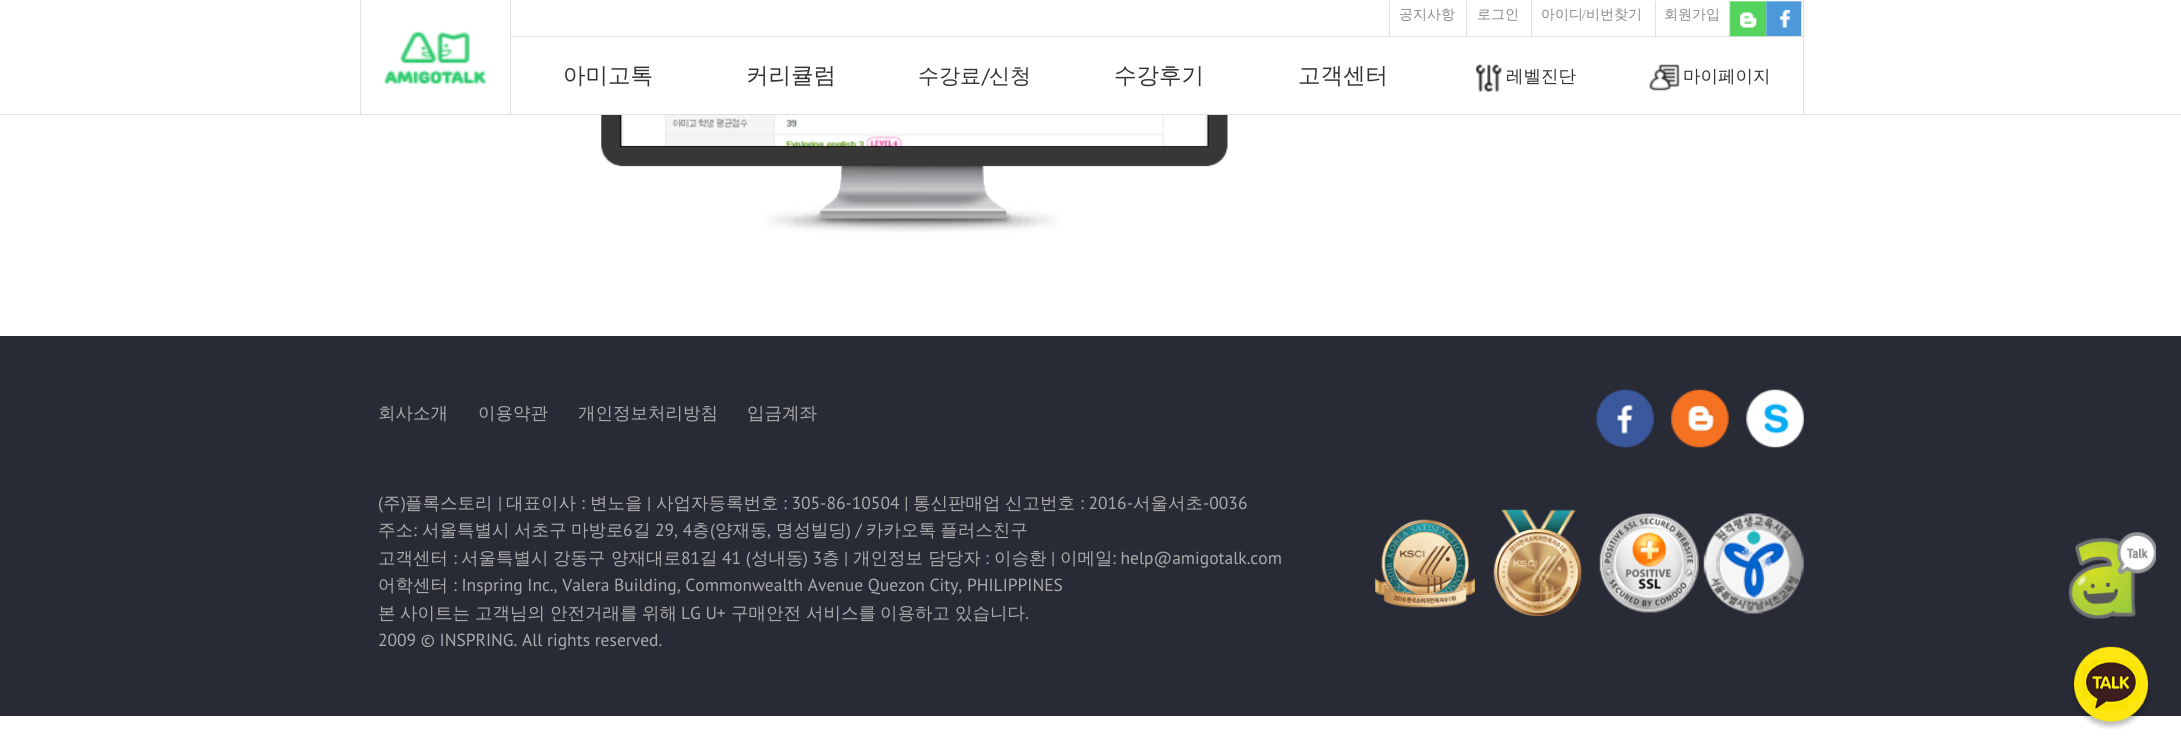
#include <cairo.h>
#include <math.h>
#include <stddef.h>

static cairo_t *ctx;

static void use_color(int r, int g, int b) {
    cairo_set_source_rgb(ctx, r / 255.0, g / 255.0, b / 255.0);
}

static void spaced_text(double x, double y, const char *s, double letter, double word) {
    cairo_move_to(ctx, x, y);
    while (*s) {
        char ch[5] = {0};
        int n = 0;
        do ch[n++] = *s++; while ((*s & 0xC0) == 0x80);
        cairo_show_text(ctx, ch);
        cairo_rel_move_to(ctx, letter + word * (*ch == ' '), 0);
    }
}

static void picture(const char *path, double x, double y, double w, double h) {
    cairo_surface_t *image = cairo_image_surface_create_from_png(path);
    cairo_save(ctx);
    cairo_set_source_surface(ctx, image, x, y);
    cairo_rectangle(ctx, x, y, w, h);
    cairo_fill(ctx);
    cairo_restore(ctx);
    cairo_surface_destroy(image);
}

int main(void) {
    cairo_surface_t *surface = cairo_image_surface_create(CAIRO_FORMAT_RGB24, 2181, 743);
    ctx = cairo_create(surface);
    cairo_font_options_t *options = cairo_font_options_create();
    cairo_font_options_set_hint_metrics(options, CAIRO_HINT_METRICS_OFF);
    cairo_font_options_set_hint_style(options, CAIRO_HINT_STYLE_NONE);
    cairo_set_font_options(ctx, options);
    cairo_set_miter_limit(ctx, 4);
    use_color(255, 255, 255);
    cairo_paint(ctx);
    use_color(223, 223, 223);
    cairo_rectangle(ctx, 0, 114, 2181, 1);
    cairo_fill(ctx);
    cairo_rectangle(ctx, 1803, 0, 1, 114);
    cairo_fill(ctx);
    cairo_rectangle(ctx, 510, 36, 1293, 1);
    cairo_fill(ctx);
    cairo_rectangle(ctx, 510, 0, 1, 114);
    cairo_fill(ctx);
    cairo_rectangle(ctx, 360, 0, 1, 114);
    cairo_fill(ctx);
    picture("img1.png", 383, 31, 103, 53);
    cairo_rectangle(ctx, 1801, 1, 1, 35);
    cairo_fill(ctx);
    cairo_rectangle(ctx, 1389, 1, 1, 35);
    cairo_fill(ctx);
    cairo_select_font_face(ctx, "WenQuanYi Zen Hei Medium", CAIRO_FONT_SLANT_NORMAL, CAIRO_FONT_WEIGHT_NORMAL);
    cairo_set_font_size(ctx, 14);
    use_color(137, 137, 137);
    cairo_move_to(ctx, 1399, 19);
    cairo_show_text(ctx, "공지사항");
    use_color(223, 223, 223);
    cairo_rectangle(ctx, 1466, 1, 1, 35);
    cairo_fill(ctx);
    use_color(137, 137, 137);
    cairo_move_to(ctx, 1477, 19);
    cairo_show_text(ctx, "로그인");
    use_color(223, 223, 223);
    cairo_rectangle(ctx, 1531, 1, 1, 35);
    cairo_fill(ctx);
    use_color(137, 137, 137);
    cairo_move_to(ctx, 1541, 19);
    cairo_show_text(ctx, "아이디");
    cairo_select_font_face(ctx, "Liberation Serif", CAIRO_FONT_SLANT_NORMAL, CAIRO_FONT_WEIGHT_NORMAL);
    cairo_move_to(ctx, 1582, 19);
    cairo_show_text(ctx, "/");
    cairo_select_font_face(ctx, "WenQuanYi Zen Hei Medium", CAIRO_FONT_SLANT_NORMAL, CAIRO_FONT_WEIGHT_NORMAL);
    cairo_move_to(ctx, 1586, 19);
    cairo_show_text(ctx, "비번찾기");
    use_color(223, 223, 223);
    cairo_rectangle(ctx, 1655, 1, 1, 35);
    cairo_fill(ctx);
    use_color(137, 137, 137);
    cairo_move_to(ctx, 1664, 19);
    cairo_show_text(ctx, "회원가입");
    use_color(223, 223, 223);
    cairo_rectangle(ctx, 1729, 1, 1, 35);
    cairo_fill(ctx);
    picture("img2.png", 1729, 1, 38, 36);
    picture("img3.png", 1766, 1, 35, 35);
    cairo_set_font_size(ctx, 22.5);
    use_color(51, 51, 51);
    cairo_move_to(ctx, 563, 83);
    cairo_show_text(ctx, "아미고톡");
    cairo_move_to(ctx, 746, 83);
    cairo_show_text(ctx, "커리큘럼");
    cairo_set_font_size(ctx, 21);
    cairo_move_to(ctx, 918, 83);
    cairo_show_text(ctx, "수강료");
    cairo_select_font_face(ctx, "PT Sans", CAIRO_FONT_SLANT_NORMAL, CAIRO_FONT_WEIGHT_NORMAL);
    cairo_move_to(ctx, 982, 83);
    cairo_show_text(ctx, "/");
    cairo_select_font_face(ctx, "WenQuanYi Zen Hei Medium", CAIRO_FONT_SLANT_NORMAL, CAIRO_FONT_WEIGHT_NORMAL);
    cairo_move_to(ctx, 989, 83);
    cairo_show_text(ctx, "신청");
    cairo_set_font_size(ctx, 22.5);
    cairo_move_to(ctx, 1114, 83);
    cairo_show_text(ctx, "수강후기");
    cairo_move_to(ctx, 1298, 83);
    cairo_show_text(ctx, "고객센터");
    picture("img4.png", 1476, 64, 26, 28);
    cairo_set_font_size(ctx, 17.5);
    cairo_move_to(ctx, 1506, 82);
    cairo_show_text(ctx, "레벨진단");
    picture("img5.png", 1649, 64, 31, 27);
    cairo_move_to(ctx, 1683, 82);
    cairo_show_text(ctx, "마이페이지");
    picture("img6.png", 601, 115, 627, 118);
    use_color(40, 42, 54);
    cairo_rectangle(ctx, 0, 336, 2181, 380);
    cairo_fill(ctx);
    use_color(171, 171, 171);
    cairo_move_to(ctx, 378, 419);
    cairo_show_text(ctx, "회사소개");
    cairo_move_to(ctx, 478, 419);
    cairo_show_text(ctx, "이용약관");
    cairo_move_to(ctx, 578, 419);
    cairo_show_text(ctx, "개인정보처리방침");
    cairo_move_to(ctx, 747, 419);
    cairo_show_text(ctx, "입금계좌");
    picture("img7.png", 1596, 389, 58, 59);
    picture("img8.png", 1671, 389, 58, 59);
    picture("img9.png", 1746, 389, 58, 59);
    cairo_select_font_face(ctx, "PT Sans", CAIRO_FONT_SLANT_NORMAL, CAIRO_FONT_WEIGHT_NORMAL);
    cairo_move_to(ctx, 378, 509);
    cairo_show_text(ctx, "(");
    cairo_select_font_face(ctx, "WenQuanYi Zen Hei Medium", CAIRO_FONT_SLANT_NORMAL, CAIRO_FONT_WEIGHT_NORMAL);
    cairo_move_to(ctx, 383, 509);
    cairo_show_text(ctx, "주");
    cairo_select_font_face(ctx, "PT Sans", CAIRO_FONT_SLANT_NORMAL, CAIRO_FONT_WEIGHT_NORMAL);
    cairo_move_to(ctx, 401, 509);
    cairo_show_text(ctx, ")");
    cairo_select_font_face(ctx, "WenQuanYi Zen Hei Medium", CAIRO_FONT_SLANT_NORMAL, CAIRO_FONT_WEIGHT_NORMAL);
    cairo_move_to(ctx, 405, 509);
    cairo_show_text(ctx, "플록스토리");
    cairo_select_font_face(ctx, "PT Sans", CAIRO_FONT_SLANT_NORMAL, CAIRO_FONT_WEIGHT_NORMAL);
    cairo_move_to(ctx, 498, 509);
    cairo_show_text(ctx, "|");
    cairo_select_font_face(ctx, "WenQuanYi Zen Hei Medium", CAIRO_FONT_SLANT_NORMAL, CAIRO_FONT_WEIGHT_NORMAL);
    cairo_move_to(ctx, 506, 509);
    cairo_show_text(ctx, "대표이사");
    cairo_select_font_face(ctx, "PT Sans", CAIRO_FONT_SLANT_NORMAL, CAIRO_FONT_WEIGHT_NORMAL);
    cairo_move_to(ctx, 581, 509);
    cairo_show_text(ctx, ":");
    cairo_select_font_face(ctx, "WenQuanYi Zen Hei Medium", CAIRO_FONT_SLANT_NORMAL, CAIRO_FONT_WEIGHT_NORMAL);
    cairo_move_to(ctx, 590, 509);
    cairo_show_text(ctx, "변노을");
    cairo_select_font_face(ctx, "PT Sans", CAIRO_FONT_SLANT_NORMAL, CAIRO_FONT_WEIGHT_NORMAL);
    cairo_move_to(ctx, 647, 509);
    cairo_show_text(ctx, "|");
    cairo_select_font_face(ctx, "WenQuanYi Zen Hei Medium", CAIRO_FONT_SLANT_NORMAL, CAIRO_FONT_WEIGHT_NORMAL);
    cairo_move_to(ctx, 656, 509);
    cairo_show_text(ctx, "사업자등록번호");
    cairo_select_font_face(ctx, "PT Sans", CAIRO_FONT_SLANT_NORMAL, CAIRO_FONT_WEIGHT_NORMAL);
    cairo_move_to(ctx, 783, 509);
    cairo_show_text(ctx, ": 305-86-10504 |");
    cairo_select_font_face(ctx, "WenQuanYi Zen Hei Medium", CAIRO_FONT_SLANT_NORMAL, CAIRO_FONT_WEIGHT_NORMAL);
    cairo_move_to(ctx, 913, 509);
    cairo_show_text(ctx, "통신판매업");
    cairo_move_to(ctx, 1005, 509);
    cairo_show_text(ctx, "신고번호");
    cairo_select_font_face(ctx, "PT Sans", CAIRO_FONT_SLANT_NORMAL, CAIRO_FONT_WEIGHT_NORMAL);
    cairo_move_to(ctx, 1080, 509);
    cairo_show_text(ctx, ": 2016-");
    cairo_select_font_face(ctx, "WenQuanYi Zen Hei Medium", CAIRO_FONT_SLANT_NORMAL, CAIRO_FONT_WEIGHT_NORMAL);
    cairo_move_to(ctx, 1133, 509);
    cairo_show_text(ctx, "서울서초");
    cairo_select_font_face(ctx, "PT Sans", CAIRO_FONT_SLANT_NORMAL, CAIRO_FONT_WEIGHT_NORMAL);
    cairo_move_to(ctx, 1203, 509);
    cairo_show_text(ctx, "-0036");
    cairo_select_font_face(ctx, "WenQuanYi Zen Hei Medium", CAIRO_FONT_SLANT_NORMAL, CAIRO_FONT_WEIGHT_NORMAL);
    cairo_move_to(ctx, 378, 536);
    cairo_show_text(ctx, "주소");
    cairo_select_font_face(ctx, "PT Sans", CAIRO_FONT_SLANT_NORMAL, CAIRO_FONT_WEIGHT_NORMAL);
    cairo_move_to(ctx, 413, 536);
    cairo_show_text(ctx, ":");
    cairo_select_font_face(ctx, "WenQuanYi Zen Hei Medium", CAIRO_FONT_SLANT_NORMAL, CAIRO_FONT_WEIGHT_NORMAL);
    cairo_move_to(ctx, 422, 536);
    cairo_show_text(ctx, "서울특별시");
    cairo_move_to(ctx, 514, 536);
    cairo_show_text(ctx, "서초구");
    cairo_move_to(ctx, 571, 536);
    cairo_show_text(ctx, "마방로");
    cairo_select_font_face(ctx, "PT Sans", CAIRO_FONT_SLANT_NORMAL, CAIRO_FONT_WEIGHT_NORMAL);
    cairo_move_to(ctx, 623, 536);
    cairo_show_text(ctx, "6");
    cairo_select_font_face(ctx, "WenQuanYi Zen Hei Medium", CAIRO_FONT_SLANT_NORMAL, CAIRO_FONT_WEIGHT_NORMAL);
    cairo_move_to(ctx, 633, 536);
    cairo_show_text(ctx, "길");
    cairo_select_font_face(ctx, "PT Sans", CAIRO_FONT_SLANT_NORMAL, CAIRO_FONT_WEIGHT_NORMAL);
    cairo_move_to(ctx, 655, 536);
    cairo_show_text(ctx, "29, 4");
    cairo_select_font_face(ctx, "WenQuanYi Zen Hei Medium", CAIRO_FONT_SLANT_NORMAL, CAIRO_FONT_WEIGHT_NORMAL);
    cairo_move_to(ctx, 692, 536);
    cairo_show_text(ctx, "층");
    cairo_select_font_face(ctx, "PT Sans", CAIRO_FONT_SLANT_NORMAL, CAIRO_FONT_WEIGHT_NORMAL);
    cairo_move_to(ctx, 710, 536);
    cairo_show_text(ctx, "(");
    cairo_select_font_face(ctx, "WenQuanYi Zen Hei Medium", CAIRO_FONT_SLANT_NORMAL, CAIRO_FONT_WEIGHT_NORMAL);
    cairo_move_to(ctx, 715, 536);
    cairo_show_text(ctx, "양재동");
    cairo_select_font_face(ctx, "PT Sans", CAIRO_FONT_SLANT_NORMAL, CAIRO_FONT_WEIGHT_NORMAL);
    cairo_move_to(ctx, 767, 536);
    cairo_show_text(ctx, ",");
    cairo_select_font_face(ctx, "WenQuanYi Zen Hei Medium", CAIRO_FONT_SLANT_NORMAL, CAIRO_FONT_WEIGHT_NORMAL);
    cairo_move_to(ctx, 776, 536);
    cairo_show_text(ctx, "명성빌딩");
    cairo_select_font_face(ctx, "PT Sans", CAIRO_FONT_SLANT_NORMAL, CAIRO_FONT_WEIGHT_NORMAL);
    cairo_move_to(ctx, 846, 536);
    cairo_show_text(ctx, ") /");
    cairo_select_font_face(ctx, "WenQuanYi Zen Hei Medium", CAIRO_FONT_SLANT_NORMAL, CAIRO_FONT_WEIGHT_NORMAL);
    spaced_text(866, 536, "카카오톡 플러스친구", 0, -1);
    cairo_move_to(ctx, 378, 564);
    cairo_show_text(ctx, "고객센터");
    cairo_select_font_face(ctx, "PT Sans", CAIRO_FONT_SLANT_NORMAL, CAIRO_FONT_WEIGHT_NORMAL);
    cairo_move_to(ctx, 453, 564);
    cairo_show_text(ctx, ":");
    cairo_select_font_face(ctx, "WenQuanYi Zen Hei Medium", CAIRO_FONT_SLANT_NORMAL, CAIRO_FONT_WEIGHT_NORMAL);
    cairo_move_to(ctx, 461, 564);
    cairo_show_text(ctx, "서울특별시");
    cairo_move_to(ctx, 553, 564);
    cairo_show_text(ctx, "강동구");
    cairo_move_to(ctx, 611, 564);
    cairo_show_text(ctx, "양재대로");
    cairo_select_font_face(ctx, "PT Sans", CAIRO_FONT_SLANT_NORMAL, CAIRO_FONT_WEIGHT_NORMAL);
    cairo_move_to(ctx, 681, 564);
    cairo_show_text(ctx, "81");
    cairo_select_font_face(ctx, "WenQuanYi Zen Hei Medium", CAIRO_FONT_SLANT_NORMAL, CAIRO_FONT_WEIGHT_NORMAL);
    cairo_move_to(ctx, 700, 564);
    cairo_show_text(ctx, "길");
    cairo_select_font_face(ctx, "PT Sans", CAIRO_FONT_SLANT_NORMAL, CAIRO_FONT_WEIGHT_NORMAL);
    cairo_move_to(ctx, 722, 564);
    cairo_show_text(ctx, "41 (");
    cairo_select_font_face(ctx, "WenQuanYi Zen Hei Medium", CAIRO_FONT_SLANT_NORMAL, CAIRO_FONT_WEIGHT_NORMAL);
    cairo_move_to(ctx, 751, 564);
    cairo_show_text(ctx, "성내동");
    cairo_select_font_face(ctx, "PT Sans", CAIRO_FONT_SLANT_NORMAL, CAIRO_FONT_WEIGHT_NORMAL);
    cairo_move_to(ctx, 803, 564);
    cairo_show_text(ctx, ") 3");
    cairo_select_font_face(ctx, "WenQuanYi Zen Hei Medium", CAIRO_FONT_SLANT_NORMAL, CAIRO_FONT_WEIGHT_NORMAL);
    cairo_move_to(ctx, 822, 564);
    cairo_show_text(ctx, "층");
    cairo_select_font_face(ctx, "PT Sans", CAIRO_FONT_SLANT_NORMAL, CAIRO_FONT_WEIGHT_NORMAL);
    cairo_move_to(ctx, 844, 564);
    cairo_show_text(ctx, "|");
    cairo_select_font_face(ctx, "WenQuanYi Zen Hei Medium", CAIRO_FONT_SLANT_NORMAL, CAIRO_FONT_WEIGHT_NORMAL);
    cairo_move_to(ctx, 853, 564);
    cairo_show_text(ctx, "개인정보 담당자");
    cairo_select_font_face(ctx, "PT Sans", CAIRO_FONT_SLANT_NORMAL, CAIRO_FONT_WEIGHT_NORMAL);
    cairo_move_to(ctx, 985, 564);
    cairo_show_text(ctx, ":");
    cairo_select_font_face(ctx, "WenQuanYi Zen Hei Medium", CAIRO_FONT_SLANT_NORMAL, CAIRO_FONT_WEIGHT_NORMAL);
    cairo_move_to(ctx, 994, 564);
    cairo_show_text(ctx, "이승환");
    cairo_select_font_face(ctx, "PT Sans", CAIRO_FONT_SLANT_NORMAL, CAIRO_FONT_WEIGHT_NORMAL);
    cairo_move_to(ctx, 1051, 564);
    cairo_show_text(ctx, "|");
    cairo_select_font_face(ctx, "WenQuanYi Zen Hei Medium", CAIRO_FONT_SLANT_NORMAL, CAIRO_FONT_WEIGHT_NORMAL);
    cairo_move_to(ctx, 1060, 564);
    cairo_show_text(ctx, "이메일");
    cairo_select_font_face(ctx, "PT Sans", CAIRO_FONT_SLANT_NORMAL, CAIRO_FONT_WEIGHT_NORMAL);
    cairo_move_to(ctx, 1112, 564);
    cairo_show_text(ctx, ": help@amigotalk.com");
    cairo_select_font_face(ctx, "WenQuanYi Zen Hei Medium", CAIRO_FONT_SLANT_NORMAL, CAIRO_FONT_WEIGHT_NORMAL);
    cairo_move_to(ctx, 378, 591);
    cairo_show_text(ctx, "어학센터");
    cairo_select_font_face(ctx, "PT Sans", CAIRO_FONT_SLANT_NORMAL, CAIRO_FONT_WEIGHT_NORMAL);
    cairo_move_to(ctx, 453, 591);
    cairo_show_text(ctx, ": Inspring Inc., Valera Building, Commonwealth Avenue Quezon City, PHILIPPINES");
    cairo_select_font_face(ctx, "WenQuanYi Zen Hei Medium", CAIRO_FONT_SLANT_NORMAL, CAIRO_FONT_WEIGHT_NORMAL);
    cairo_move_to(ctx, 378, 619);
    cairo_show_text(ctx, "본");
    cairo_move_to(ctx, 400, 619);
    cairo_show_text(ctx, "사이트는");
    cairo_move_to(ctx, 475, 619);
    cairo_show_text(ctx, "고객님의");
    cairo_move_to(ctx, 550, 619);
    cairo_show_text(ctx, "안전거래를");
    cairo_move_to(ctx, 642, 619);
    cairo_show_text(ctx, "위해");
    cairo_select_font_face(ctx, "PT Sans", CAIRO_FONT_SLANT_NORMAL, CAIRO_FONT_WEIGHT_NORMAL);
    cairo_move_to(ctx, 681, 619);
    cairo_show_text(ctx, "LG U+");
    cairo_select_font_face(ctx, "WenQuanYi Zen Hei Medium", CAIRO_FONT_SLANT_NORMAL, CAIRO_FONT_WEIGHT_NORMAL);
    cairo_move_to(ctx, 731, 619);
    cairo_show_text(ctx, "구매안전");
    cairo_move_to(ctx, 806, 619);
    cairo_show_text(ctx, "서비스를");
    cairo_move_to(ctx, 880, 619);
    cairo_show_text(ctx, "이용하고");
    cairo_move_to(ctx, 955, 619);
    cairo_show_text(ctx, "있습니다");
    cairo_select_font_face(ctx, "PT Sans", CAIRO_FONT_SLANT_NORMAL, CAIRO_FONT_WEIGHT_NORMAL);
    cairo_move_to(ctx, 1025, 619);
    cairo_show_text(ctx, ".");
    cairo_move_to(ctx, 378, 646);
    cairo_show_text(ctx, "2009 © INSPRING. All rights reserved.");
    picture("img10.png", 1375, 519, 100, 89);
    picture("img11.png", 1493, 509, 89, 107);
    picture("img12.png", 1599, 513, 100, 100);
    picture("img13.png", 1703, 513, 101, 101);
    picture("img14.png", 2068, 532, 89, 87);
    picture("img15.png", 2072, 646, 78, 83);
    cairo_surface_write_to_png(surface, "result.png");
    cairo_font_options_destroy(options);
    cairo_destroy(ctx);
    cairo_surface_destroy(surface);
    return 0;
}
